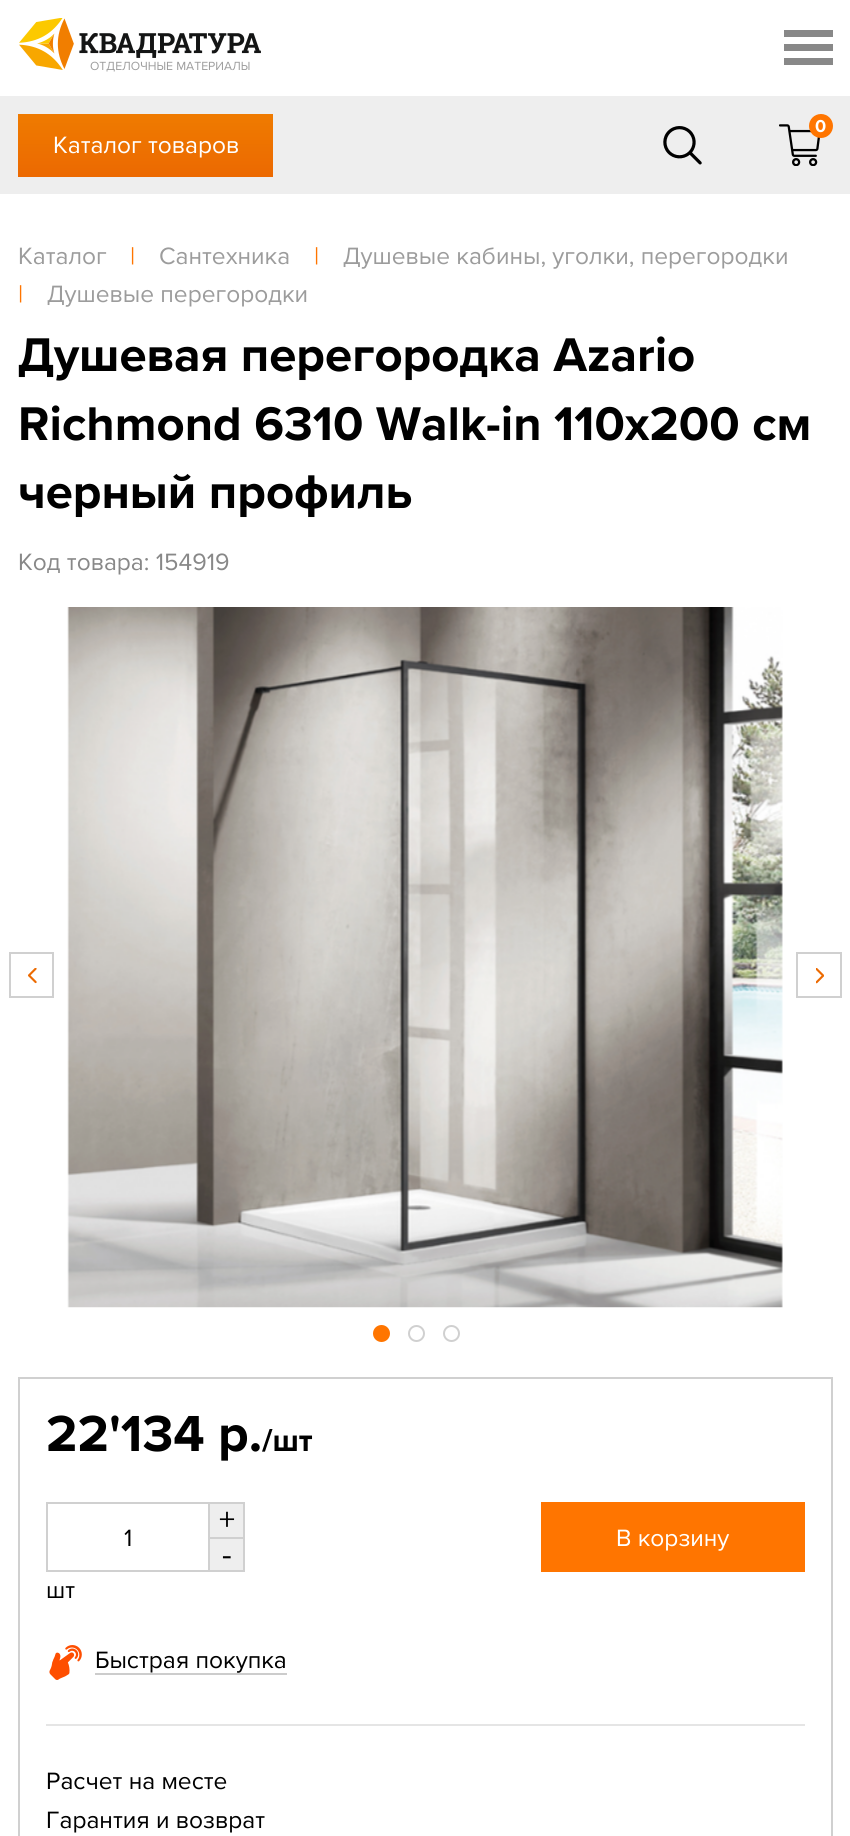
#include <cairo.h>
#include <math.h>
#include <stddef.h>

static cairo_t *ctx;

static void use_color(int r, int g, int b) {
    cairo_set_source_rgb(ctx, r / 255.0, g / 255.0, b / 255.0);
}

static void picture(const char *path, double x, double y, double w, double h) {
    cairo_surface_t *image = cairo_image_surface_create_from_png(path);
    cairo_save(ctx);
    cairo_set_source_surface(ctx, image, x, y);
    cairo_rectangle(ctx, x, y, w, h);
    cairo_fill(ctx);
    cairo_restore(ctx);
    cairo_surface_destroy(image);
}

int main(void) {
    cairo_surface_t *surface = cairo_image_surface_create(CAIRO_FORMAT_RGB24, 850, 1836);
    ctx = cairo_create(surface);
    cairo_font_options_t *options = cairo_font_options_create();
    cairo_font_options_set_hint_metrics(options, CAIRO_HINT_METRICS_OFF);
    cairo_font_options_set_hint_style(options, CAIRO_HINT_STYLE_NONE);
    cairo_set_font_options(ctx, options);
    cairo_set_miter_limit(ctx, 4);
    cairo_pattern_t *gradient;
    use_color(255, 255, 255);
    cairo_paint(ctx);
    use_color(136, 136, 136);
    cairo_rectangle(ctx, 784, 44, 49, 7);
    cairo_fill(ctx);
    cairo_rectangle(ctx, 784, 30, 49, 7);
    cairo_fill(ctx);
    cairo_rectangle(ctx, 784, 58, 49, 7);
    cairo_fill(ctx);
    picture("img1.png", 19, 18, 242, 52);
    cairo_select_font_face(ctx, "Proxima Nova", CAIRO_FONT_SLANT_NORMAL, CAIRO_FONT_WEIGHT_NORMAL);
    cairo_set_font_size(ctx, 12.25);
    use_color(156, 156, 156);
    cairo_move_to(ctx, 90, 70);
    cairo_show_text(ctx, "ОТДЕЛОЧНЫЕ МАТЕРИАЛЫ");
    use_color(238, 238, 238);
    cairo_rectangle(ctx, 0, 96, 850, 98);
    cairo_fill(ctx);
    gradient = cairo_pattern_create_linear(145, 114, 145, 177);
    cairo_pattern_add_color_stop_rgba(gradient, 0, 0.937, 0.482, 0, 1);
    cairo_pattern_add_color_stop_rgba(gradient, 1, 0.925, 0.412, 0.004, 1);
    cairo_set_source(ctx, gradient);
    cairo_pattern_destroy(gradient);
    cairo_rectangle(ctx, 18, 114, 255, 63);
    cairo_fill(ctx);
    cairo_set_font_size(ctx, 24.5);
    use_color(255, 255, 255);
    cairo_move_to(ctx, 53, 153);
    cairo_show_text(ctx, "Каталог товаров");
    picture("img2.png", 663, 126, 39, 39);
    picture("img3.png", 779, 124, 41, 42);
    use_color(255, 117, 0);
    cairo_arc(ctx, 821, 126, 12, 0, 2 * M_PI);
    cairo_fill(ctx);
    cairo_select_font_face(ctx, "Proxima Nova", CAIRO_FONT_SLANT_NORMAL, CAIRO_FONT_WEIGHT_BOLD);
    cairo_set_font_size(ctx, 18);
    use_color(255, 255, 255);
    cairo_move_to(ctx, 815, 132);
    cairo_show_text(ctx, "0");
    cairo_select_font_face(ctx, "Proxima Nova", CAIRO_FONT_SLANT_NORMAL, CAIRO_FONT_WEIGHT_NORMAL);
    cairo_set_font_size(ctx, 24.5);
    use_color(156, 156, 156);
    cairo_move_to(ctx, 18, 264);
    cairo_show_text(ctx, "Каталог");
    use_color(255, 117, 0);
    cairo_move_to(ctx, 130, 264);
    cairo_show_text(ctx, "|");
    use_color(156, 156, 156);
    cairo_move_to(ctx, 159, 264);
    cairo_show_text(ctx, "Сантехника");
    use_color(255, 117, 0);
    cairo_move_to(ctx, 314, 264);
    cairo_show_text(ctx, "|");
    use_color(156, 156, 156);
    cairo_move_to(ctx, 343, 264);
    cairo_show_text(ctx, "Душевые кабины, уголки, перегородки");
    use_color(255, 117, 0);
    cairo_move_to(ctx, 18, 302);
    cairo_show_text(ctx, "|");
    use_color(156, 156, 156);
    cairo_move_to(ctx, 47, 302);
    cairo_show_text(ctx, "Душевые перегородки");
    cairo_select_font_face(ctx, "Proxima Nova", CAIRO_FONT_SLANT_NORMAL, CAIRO_FONT_WEIGHT_BOLD);
    cairo_set_font_size(ctx, 49);
    use_color(0, 0, 0);
    cairo_move_to(ctx, 18, 371);
    cairo_show_text(ctx, "Душевая перегородка Azario");
    cairo_move_to(ctx, 18, 440);
    cairo_show_text(ctx, "Richmond 6310 Walk-in 110х200 см");
    cairo_move_to(ctx, 18, 508);
    cairo_show_text(ctx, "черный профиль");
    cairo_select_font_face(ctx, "Proxima Nova", CAIRO_FONT_SLANT_NORMAL, CAIRO_FONT_WEIGHT_NORMAL);
    cairo_set_font_size(ctx, 24.5);
    use_color(136, 136, 136);
    cairo_move_to(ctx, 18, 570);
    cairo_show_text(ctx, "Код товара: 154919");
    cairo_rectangle(ctx, 10, 953, 43, 44);
    use_color(208, 208, 208);
    cairo_stroke(ctx);
    picture("img4.png", 28, 968, 9, 16);
    picture("img5.png", 67, 607, 716, 701);
    cairo_rectangle(ctx, 797, 953, 44, 44);
    cairo_stroke(ctx);
    picture("img6.png", 816, 968, 8, 16);
    use_color(255, 117, 0);
    cairo_arc(ctx, 381.5, 1333.5, 7.5, 0, 2 * M_PI);
    cairo_fill_preserve(ctx);
    cairo_stroke(ctx);
    cairo_arc(ctx, 416.5, 1333.5, 7.5, 0, 2 * M_PI);
    use_color(208, 208, 208);
    cairo_stroke(ctx);
    cairo_arc(ctx, 451.5, 1333.5, 7.5, 0, 2 * M_PI);
    cairo_stroke(ctx);
    cairo_rectangle(ctx, 19, 1378, 813, 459);
    cairo_stroke(ctx);
    cairo_select_font_face(ctx, "Proxima Nova", CAIRO_FONT_SLANT_NORMAL, CAIRO_FONT_WEIGHT_BOLD);
    cairo_set_font_size(ctx, 52.5);
    use_color(0, 0, 0);
    cairo_move_to(ctx, 46, 1451);
    cairo_show_text(ctx, "22'134 р.");
    cairo_set_font_size(ctx, 32);
    cairo_move_to(ctx, 262, 1451);
    cairo_show_text(ctx, "/шт");
    use_color(238, 238, 238);
    cairo_rectangle(ctx, 210, 1504, 33, 33);
    cairo_fill(ctx);
    use_color(208, 208, 208);
    cairo_rectangle(ctx, 210, 1502, 35, 2);
    cairo_fill(ctx);
    cairo_rectangle(ctx, 243, 1502, 2, 36);
    cairo_fill(ctx);
    cairo_select_font_face(ctx, "Proxima Nova", CAIRO_FONT_SLANT_NORMAL, CAIRO_FONT_WEIGHT_NORMAL);
    use_color(0, 0, 0);
    cairo_move_to(ctx, 219, 1530);
    cairo_show_text(ctx, "+");
    cairo_rectangle(ctx, 47, 1503, 162, 68);
    use_color(208, 208, 208);
    cairo_stroke(ctx);
    cairo_set_font_size(ctx, 24.5);
    use_color(0, 0, 0);
    cairo_move_to(ctx, 124, 1546);
    cairo_show_text(ctx, "1");
    use_color(238, 238, 238);
    cairo_rectangle(ctx, 210, 1539, 33, 31);
    cairo_fill(ctx);
    use_color(208, 208, 208);
    cairo_rectangle(ctx, 210, 1537, 35, 2);
    cairo_fill(ctx);
    cairo_rectangle(ctx, 243, 1537, 2, 35);
    cairo_fill(ctx);
    cairo_rectangle(ctx, 210, 1570, 35, 2);
    cairo_fill(ctx);
    cairo_set_font_size(ctx, 32);
    use_color(0, 0, 0);
    cairo_move_to(ctx, 222, 1565);
    cairo_show_text(ctx, "-");
    cairo_set_font_size(ctx, 24.5);
    cairo_move_to(ctx, 46, 1598);
    cairo_show_text(ctx, "шт");
    use_color(255, 117, 0);
    cairo_rectangle(ctx, 541, 1502, 264, 70);
    cairo_fill(ctx);
    use_color(255, 255, 255);
    cairo_move_to(ctx, 616, 1546);
    cairo_show_text(ctx, "В корзину");
    picture("img7.png", 49, 1645, 33, 35);
    use_color(0, 0, 0);
    cairo_move_to(ctx, 95, 1668);
    cairo_show_text(ctx, "Быстрая покупка");
    use_color(204, 204, 204);
    cairo_rectangle(ctx, 95, 1673, 192, 2);
    cairo_fill(ctx);
    use_color(229, 229, 229);
    cairo_rectangle(ctx, 46, 1724, 759, 2);
    cairo_fill(ctx);
    use_color(0, 0, 0);
    cairo_move_to(ctx, 46, 1789);
    cairo_show_text(ctx, "Расчет на месте");
    cairo_move_to(ctx, 46, 1828);
    cairo_show_text(ctx, "Гарантия и возврат");
    cairo_surface_write_to_png(surface, "result.png");
    cairo_font_options_destroy(options);
    cairo_destroy(ctx);
    cairo_surface_destroy(surface);
    return 0;
}
